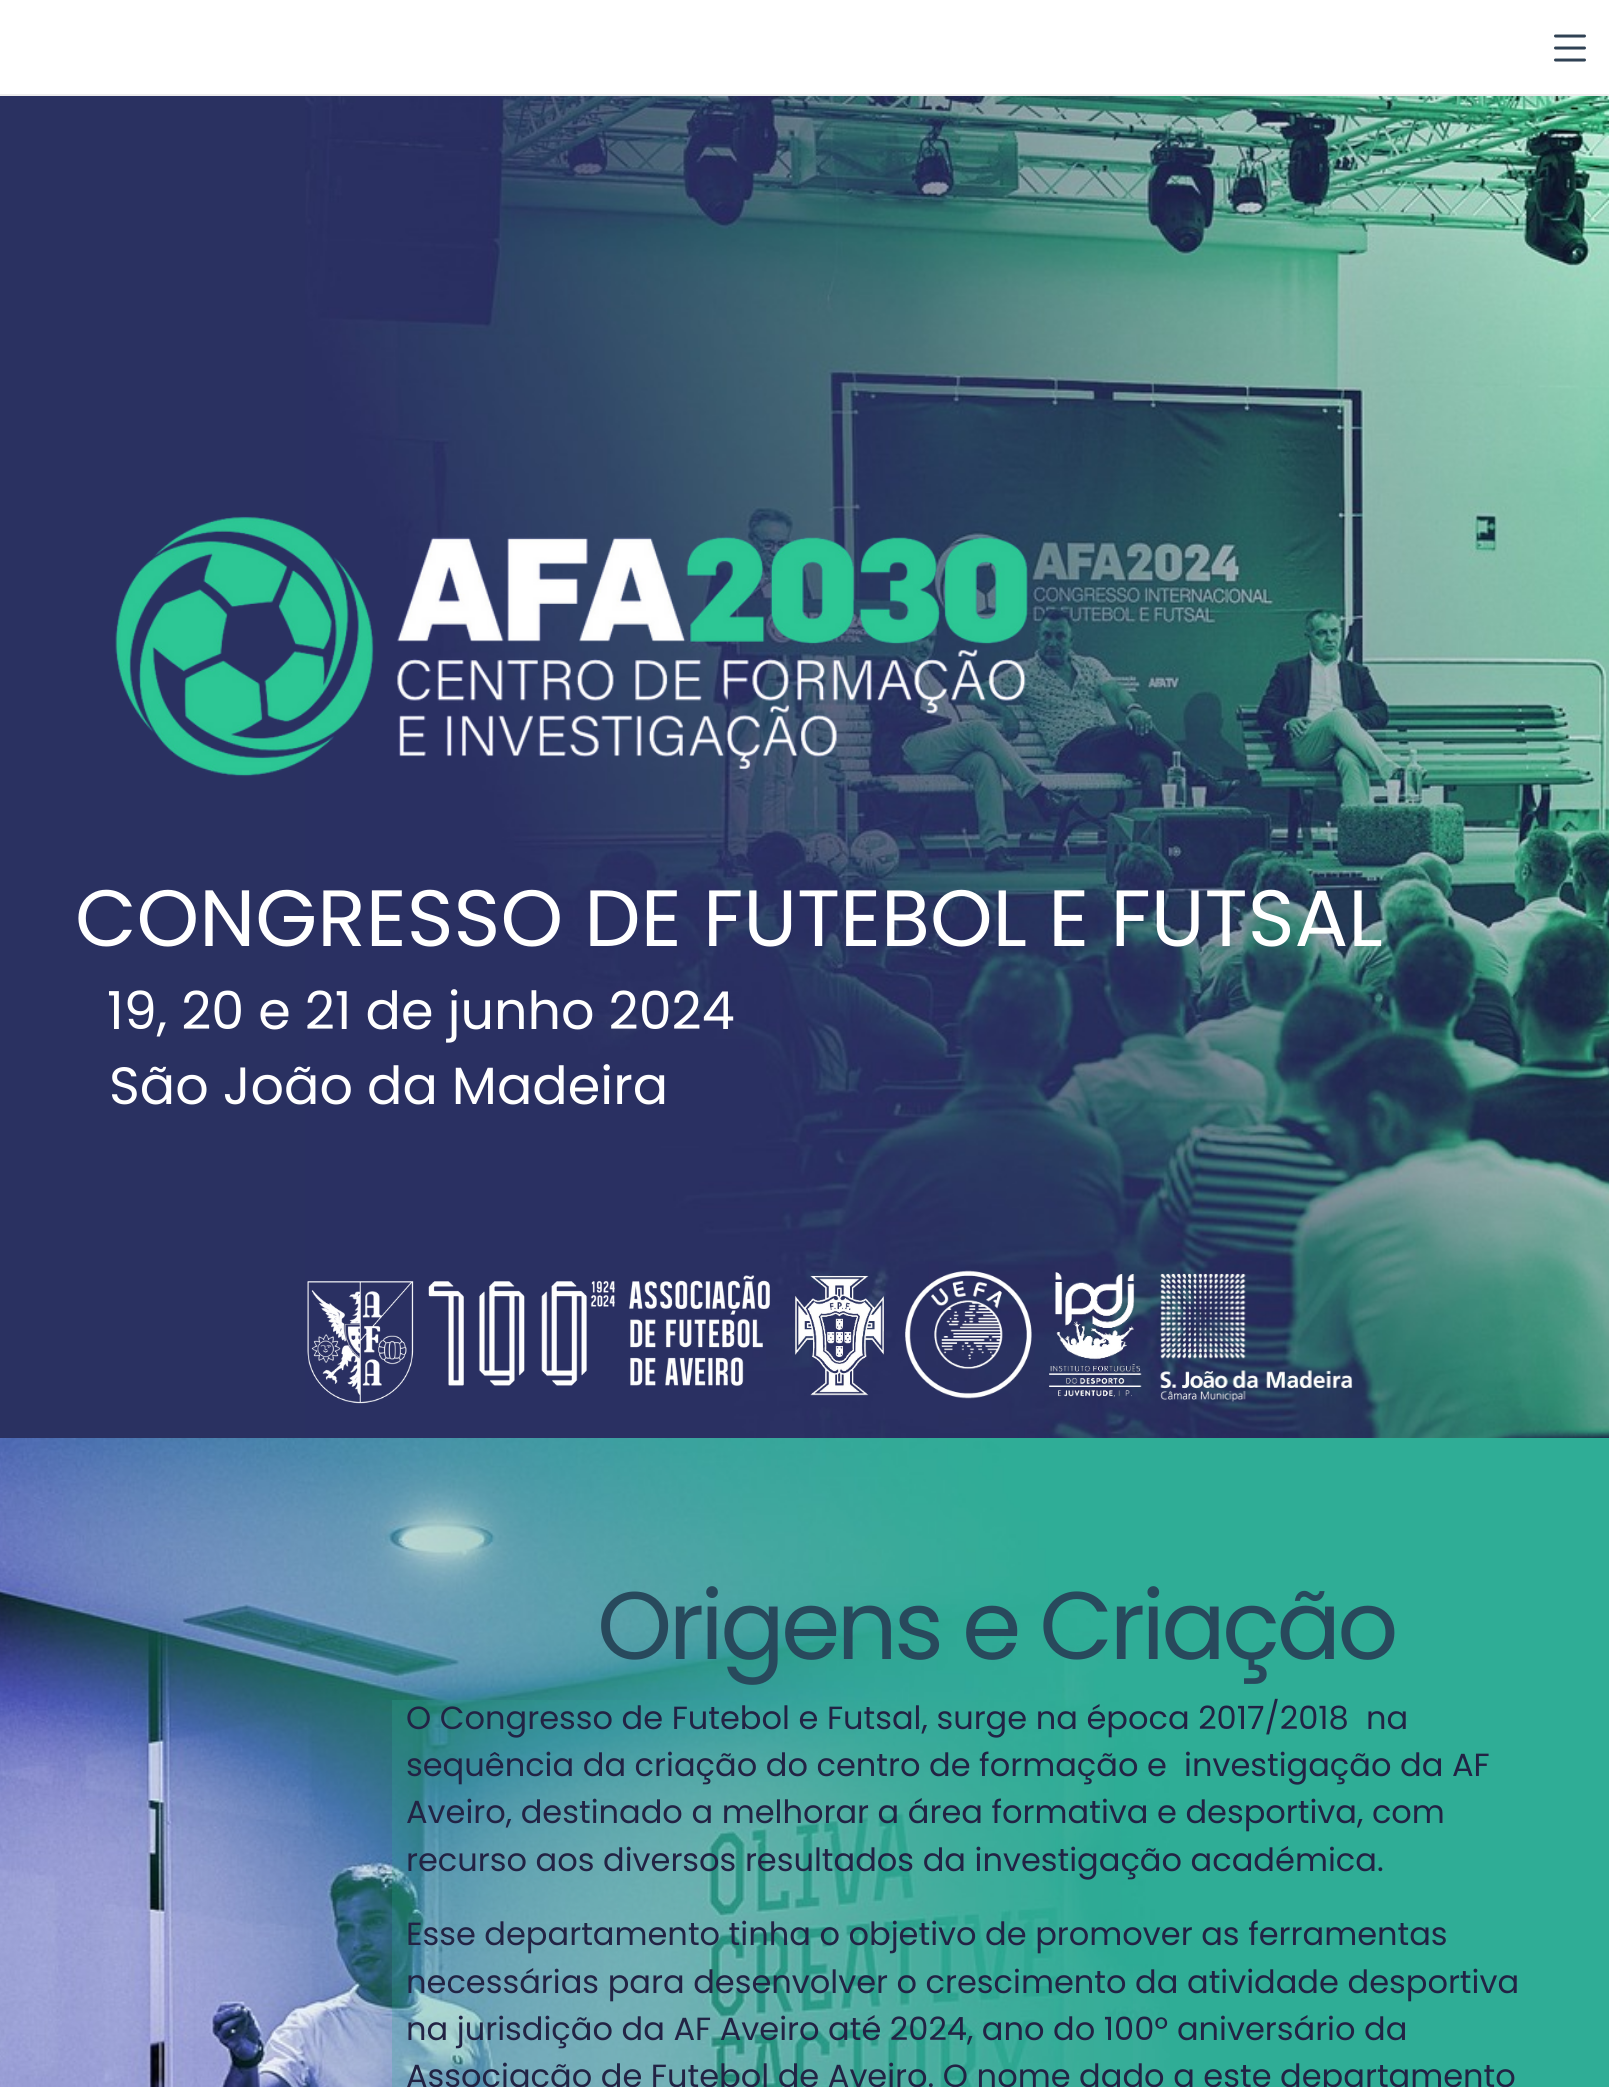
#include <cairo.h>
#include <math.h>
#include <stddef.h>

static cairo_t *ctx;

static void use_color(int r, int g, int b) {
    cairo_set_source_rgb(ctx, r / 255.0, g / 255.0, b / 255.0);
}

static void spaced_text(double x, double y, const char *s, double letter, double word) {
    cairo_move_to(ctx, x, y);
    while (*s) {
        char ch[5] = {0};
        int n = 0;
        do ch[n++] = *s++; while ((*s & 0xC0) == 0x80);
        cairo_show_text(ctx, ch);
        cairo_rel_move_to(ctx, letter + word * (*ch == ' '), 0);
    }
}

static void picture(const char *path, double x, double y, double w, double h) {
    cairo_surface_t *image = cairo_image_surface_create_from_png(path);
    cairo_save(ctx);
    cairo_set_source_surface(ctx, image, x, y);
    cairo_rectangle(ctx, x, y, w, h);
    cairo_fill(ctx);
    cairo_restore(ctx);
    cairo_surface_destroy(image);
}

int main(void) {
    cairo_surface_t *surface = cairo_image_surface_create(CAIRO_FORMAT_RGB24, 1609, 2087);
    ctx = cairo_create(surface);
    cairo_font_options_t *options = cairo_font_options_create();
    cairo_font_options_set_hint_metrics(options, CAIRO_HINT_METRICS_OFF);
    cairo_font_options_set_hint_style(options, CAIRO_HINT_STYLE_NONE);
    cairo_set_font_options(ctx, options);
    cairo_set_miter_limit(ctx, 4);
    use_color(255, 255, 255);
    cairo_paint(ctx);
    use_color(237, 237, 237);
    cairo_rectangle(ctx, 0, 94, 1609, 2);
    cairo_fill(ctx);
    picture("img1.png", 1554, 34, 32, 28);
    use_color(42, 49, 97);
    cairo_rectangle(ctx, 0, 96, 305, 1342);
    cairo_fill(ctx);
    picture("img2.png", 305, 96, 1304, 1342);
    picture("img3.png", 115, 516, 913, 261);
    cairo_select_font_face(ctx, "Poppins", CAIRO_FONT_SLANT_NORMAL, CAIRO_FONT_WEIGHT_NORMAL);
    cairo_set_font_size(ctx, 79.75);
    use_color(255, 255, 255);
    cairo_move_to(ctx, 75, 946);
    cairo_show_text(ctx, "CONGRESSO DE FUTEBOL E FUTSAL");
    cairo_set_font_size(ctx, 52.4);
    cairo_move_to(ctx, 107, 1029);
    cairo_show_text(ctx, "19, 20 e 21 de junho 2024");
    cairo_move_to(ctx, 109, 1104);
    cairo_show_text(ctx, "São João da Madeira");
    picture("img4.png", 307, 1275, 463, 129);
    picture("img5.png", 795, 1275, 89, 121);
    picture("img6.png", 905, 1270, 127, 129);
    picture("img7.png", 1049, 1272, 93, 126);
    picture("img8.png", 1160, 1273, 193, 129);
    picture("img9.png", 0, 1438, 1170, 649);
    use_color(47, 173, 150);
    cairo_rectangle(ctx, 1170, 1438, 439, 649);
    cairo_fill(ctx);
    cairo_set_font_size(ctx, 95.75);
    use_color(40, 73, 92);
    spaced_text(597, 1659, "Origens e Criação", -3.8, 0);
    cairo_set_source_rgba(ctx, 0.184, 0.678, 0.588, 0.25);
    cairo_rectangle(ctx, 392, 1700, 741, 387);
    cairo_fill(ctx);
    cairo_set_font_size(ctx, 32.05);
    use_color(34, 35, 68);
    cairo_move_to(ctx, 406, 1729);
    cairo_show_text(ctx, "O Congresso de Futebol e Futsal, surge na época 2017/2018");
    cairo_move_to(ctx, 1366, 1729);
    cairo_show_text(ctx, "na");
    cairo_move_to(ctx, 406, 1776);
    cairo_show_text(ctx, "sequência da criação do centro de formação e");
    cairo_move_to(ctx, 1184, 1776);
    cairo_show_text(ctx, "investigação da AF");
    cairo_move_to(ctx, 406, 1823);
    cairo_show_text(ctx, "Aveiro, destinado a melhorar a área formativa e desportiva, com");
    cairo_move_to(ctx, 406, 1871);
    cairo_show_text(ctx, "recurso aos diversos resultados da investigação académica.");
    cairo_move_to(ctx, 406, 1945);
    cairo_show_text(ctx, "Esse departamento tinha o objetivo de promover as ferramentas");
    cairo_move_to(ctx, 406, 1993);
    cairo_show_text(ctx, "necessárias para desenvolver o crescimento da atividade desportiva");
    cairo_move_to(ctx, 406, 2040);
    cairo_show_text(ctx, "na jurisdição da AF Aveiro até 2024, ano do 100º aniversário da");
    cairo_move_to(ctx, 406, 2087);
    cairo_show_text(ctx, "Associação de Futebol de Aveiro. O nome dado a este departamento");
    cairo_surface_write_to_png(surface, "result.png");
    cairo_font_options_destroy(options);
    cairo_destroy(ctx);
    cairo_surface_destroy(surface);
    return 0;
}
